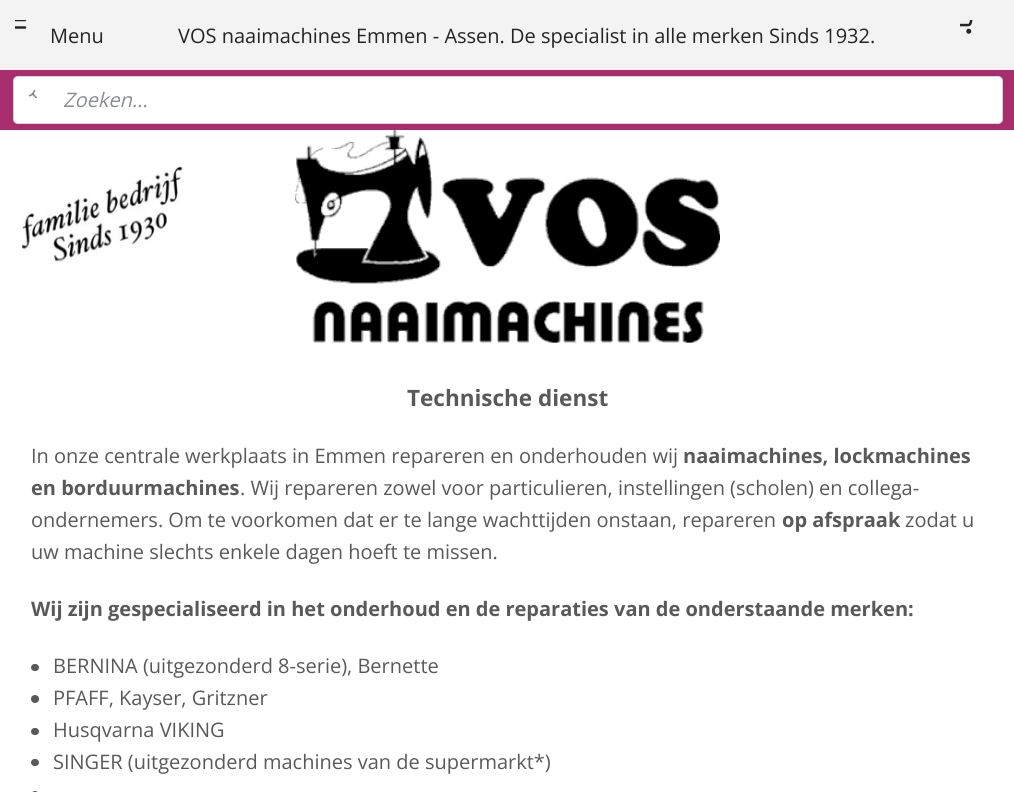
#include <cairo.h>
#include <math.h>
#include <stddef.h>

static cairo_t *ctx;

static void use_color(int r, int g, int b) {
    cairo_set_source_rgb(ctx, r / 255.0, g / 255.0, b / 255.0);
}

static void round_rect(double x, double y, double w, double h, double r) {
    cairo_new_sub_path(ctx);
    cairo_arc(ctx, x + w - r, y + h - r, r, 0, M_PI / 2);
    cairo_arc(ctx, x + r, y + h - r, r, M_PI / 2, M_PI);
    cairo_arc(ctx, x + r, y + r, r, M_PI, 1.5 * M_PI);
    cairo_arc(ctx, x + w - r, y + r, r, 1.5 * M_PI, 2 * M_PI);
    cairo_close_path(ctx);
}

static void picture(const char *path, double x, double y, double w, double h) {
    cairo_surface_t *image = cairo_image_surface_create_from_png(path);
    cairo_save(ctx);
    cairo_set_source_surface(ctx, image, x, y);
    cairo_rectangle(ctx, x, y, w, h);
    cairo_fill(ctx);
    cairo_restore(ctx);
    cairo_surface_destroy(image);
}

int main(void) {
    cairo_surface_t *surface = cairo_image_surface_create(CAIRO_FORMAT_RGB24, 1014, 792);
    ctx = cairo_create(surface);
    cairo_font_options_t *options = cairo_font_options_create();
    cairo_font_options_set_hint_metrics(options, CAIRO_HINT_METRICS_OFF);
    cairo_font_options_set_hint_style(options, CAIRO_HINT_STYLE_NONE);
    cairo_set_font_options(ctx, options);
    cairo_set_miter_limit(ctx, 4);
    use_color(255, 255, 255);
    cairo_paint(ctx);
    use_color(243, 243, 243);
    cairo_rectangle(ctx, 0, 0, 1014, 70);
    cairo_fill(ctx);
    picture("img1.png", 15, 20, 12, 9);
    cairo_select_font_face(ctx, "Open Sans", CAIRO_FONT_SLANT_NORMAL, CAIRO_FONT_WEIGHT_NORMAL);
    cairo_set_font_size(ctx, 20);
    use_color(36, 36, 36);
    cairo_move_to(ctx, 50, 43);
    cairo_show_text(ctx, "Menu");
    cairo_move_to(ctx, 178, 43);
    cairo_show_text(ctx, "VOS naaimachines Emmen - Assen. De specialist in alle merken Sinds 1932.");
    picture("img2.png", 960, 20, 13, 14);
    use_color(168, 45, 110);
    cairo_rectangle(ctx, 0, 70, 1014, 60);
    cairo_fill(ctx);
    use_color(255, 255, 255);
    round_rect(13.5, 76.5, 989, 47, 4.5);
    cairo_fill_preserve(ctx);
    use_color(211, 213, 217);
    cairo_set_line_width(ctx, 1);
    cairo_stroke(ctx);
    picture("img3.png", 29, 90, 8, 9);
    cairo_select_font_face(ctx, "Open Sans", CAIRO_FONT_SLANT_ITALIC, CAIRO_FONT_WEIGHT_NORMAL);
    use_color(137, 140, 145);
    cairo_move_to(ctx, 63, 107);
    cairo_show_text(ctx, "Zoeken...");
    picture("img4.png", 19, 163, 165, 100);
    picture("img5.png", 295, 130, 425, 213);
    cairo_select_font_face(ctx, "Open Sans", CAIRO_FONT_SLANT_NORMAL, CAIRO_FONT_WEIGHT_BOLD);
    cairo_set_font_size(ctx, 22.5);
    use_color(89, 89, 89);
    cairo_move_to(ctx, 407, 406);
    cairo_show_text(ctx, "Technische dienst");
    cairo_select_font_face(ctx, "Open Sans", CAIRO_FONT_SLANT_NORMAL, CAIRO_FONT_WEIGHT_NORMAL);
    cairo_set_font_size(ctx, 20);
    cairo_move_to(ctx, 31, 463);
    cairo_show_text(ctx, "In onze centrale werkplaats in Emmen repareren en onderhouden wij");
    cairo_select_font_face(ctx, "Open Sans", CAIRO_FONT_SLANT_NORMAL, CAIRO_FONT_WEIGHT_BOLD);
    cairo_move_to(ctx, 683, 463);
    cairo_show_text(ctx, "naaimachines, lockmachines");
    cairo_move_to(ctx, 31, 495);
    cairo_show_text(ctx, "en borduurmachines");
    cairo_select_font_face(ctx, "Open Sans", CAIRO_FONT_SLANT_NORMAL, CAIRO_FONT_WEIGHT_NORMAL);
    cairo_move_to(ctx, 240, 495);
    cairo_show_text(ctx, ". Wij repareren zowel voor particulieren, instellingen (scholen) en collega-");
    cairo_move_to(ctx, 31, 527);
    cairo_show_text(ctx, "ondernemers. Om te voorkomen dat er te lange wachttijden onstaan, repareren");
    cairo_select_font_face(ctx, "Open Sans", CAIRO_FONT_SLANT_NORMAL, CAIRO_FONT_WEIGHT_BOLD);
    cairo_move_to(ctx, 782, 527);
    cairo_show_text(ctx, "op afspraak");
    cairo_select_font_face(ctx, "Open Sans", CAIRO_FONT_SLANT_NORMAL, CAIRO_FONT_WEIGHT_NORMAL);
    cairo_move_to(ctx, 905, 527);
    cairo_show_text(ctx, "zodat u");
    cairo_move_to(ctx, 31, 559);
    cairo_show_text(ctx, "uw machine slechts enkele dagen hoeft te missen.");
    cairo_select_font_face(ctx, "Open Sans", CAIRO_FONT_SLANT_NORMAL, CAIRO_FONT_WEIGHT_BOLD);
    cairo_move_to(ctx, 31, 616);
    cairo_show_text(ctx, "Wij zijn gespecialiseerd in het onderhoud en de reparaties van de onderstaande merken:");
    round_rect(31, 664, 8, 7, 3.5);
    cairo_fill(ctx);
    cairo_select_font_face(ctx, "Open Sans", CAIRO_FONT_SLANT_NORMAL, CAIRO_FONT_WEIGHT_NORMAL);
    cairo_move_to(ctx, 53, 673);
    cairo_show_text(ctx, "BERNINA (uitgezonderd 8-serie), Bernette");
    cairo_new_path(ctx);
    cairo_arc(ctx, 35, 699, 4, 0, 2 * M_PI);
    cairo_fill(ctx);
    cairo_move_to(ctx, 53, 705);
    cairo_show_text(ctx, "PFAFF, Kayser, Gritzner");
    round_rect(31, 728, 8, 7, 3.5);
    cairo_fill(ctx);
    cairo_move_to(ctx, 53, 737);
    cairo_show_text(ctx, "Husqvarna VIKING");
    round_rect(31, 759, 8, 7, 3.5);
    cairo_fill(ctx);
    cairo_move_to(ctx, 53, 769);
    cairo_show_text(ctx, "SINGER (uitgezonderd machines van de supermarkt*)");
    round_rect(31, 791, 8, 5, 4);
    cairo_fill(ctx);
    cairo_surface_write_to_png(surface, "result.png");
    cairo_font_options_destroy(options);
    cairo_destroy(ctx);
    cairo_surface_destroy(surface);
    return 0;
}
